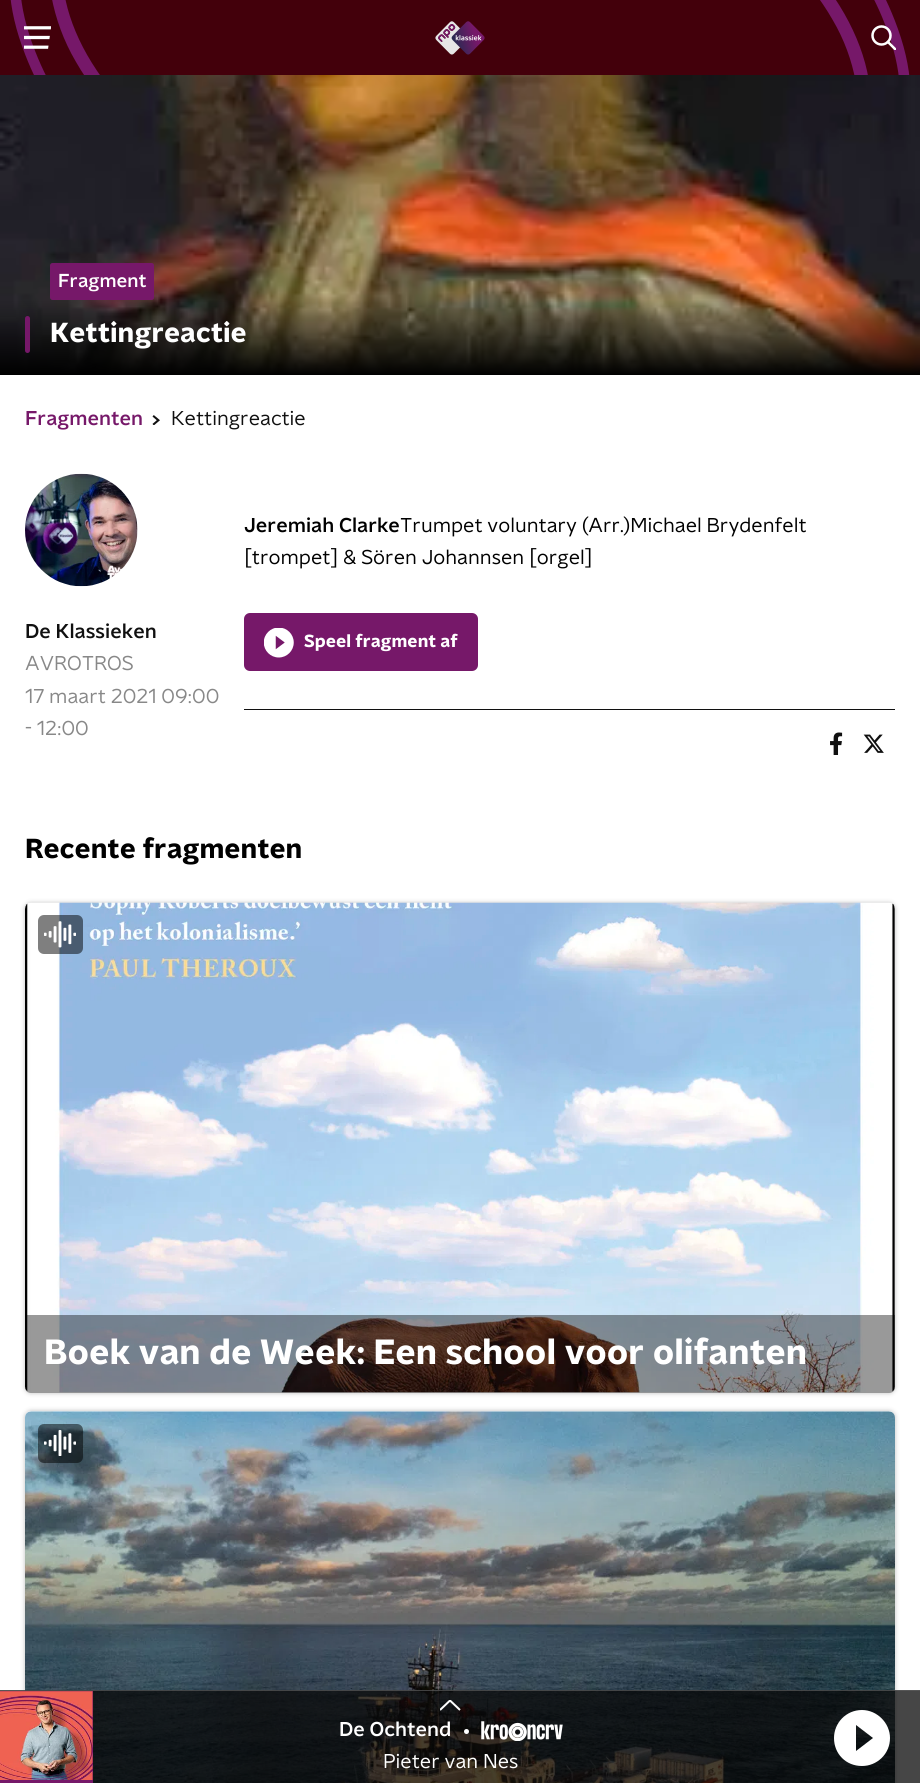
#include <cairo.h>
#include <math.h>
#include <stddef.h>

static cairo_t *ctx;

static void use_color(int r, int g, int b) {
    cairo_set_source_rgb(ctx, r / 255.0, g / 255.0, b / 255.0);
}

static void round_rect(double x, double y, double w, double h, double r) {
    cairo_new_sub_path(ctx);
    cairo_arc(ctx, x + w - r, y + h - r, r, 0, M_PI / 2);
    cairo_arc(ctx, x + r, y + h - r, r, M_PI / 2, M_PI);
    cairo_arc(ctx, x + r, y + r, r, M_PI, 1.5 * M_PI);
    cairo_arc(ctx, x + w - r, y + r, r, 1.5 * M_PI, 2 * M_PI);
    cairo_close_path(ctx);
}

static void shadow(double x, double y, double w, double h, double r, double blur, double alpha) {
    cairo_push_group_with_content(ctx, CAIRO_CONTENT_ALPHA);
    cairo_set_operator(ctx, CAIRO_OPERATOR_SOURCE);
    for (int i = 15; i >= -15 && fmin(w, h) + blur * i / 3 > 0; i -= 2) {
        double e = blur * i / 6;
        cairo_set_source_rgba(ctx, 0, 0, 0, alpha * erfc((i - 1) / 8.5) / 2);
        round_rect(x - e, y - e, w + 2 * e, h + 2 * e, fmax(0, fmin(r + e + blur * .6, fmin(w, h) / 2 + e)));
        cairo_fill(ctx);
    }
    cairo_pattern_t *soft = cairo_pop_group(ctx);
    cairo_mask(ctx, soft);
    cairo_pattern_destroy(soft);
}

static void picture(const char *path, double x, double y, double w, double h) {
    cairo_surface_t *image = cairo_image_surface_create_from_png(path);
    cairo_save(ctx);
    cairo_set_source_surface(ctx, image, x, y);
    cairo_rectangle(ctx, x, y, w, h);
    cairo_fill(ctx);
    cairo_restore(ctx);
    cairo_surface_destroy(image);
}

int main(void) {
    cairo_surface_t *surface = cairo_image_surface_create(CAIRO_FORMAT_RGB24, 920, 1783);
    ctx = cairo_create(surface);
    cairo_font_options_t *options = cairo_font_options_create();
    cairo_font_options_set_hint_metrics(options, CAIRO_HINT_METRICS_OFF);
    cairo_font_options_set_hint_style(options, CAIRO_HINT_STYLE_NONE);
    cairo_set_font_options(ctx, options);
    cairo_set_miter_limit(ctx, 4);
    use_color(255, 255, 255);
    cairo_paint(ctx);
    use_color(67, 0, 11);
    cairo_rectangle(ctx, 0, 0, 920, 75);
    cairo_fill(ctx);
    picture("img1.png", 10, 0, 900, 75);
    picture("img2.png", 24, 26, 27, 23);
    picture("img3.png", 435, 21, 50, 34);
    cairo_arc(ctx, 881.5, 35.5, 9, 0, 2 * M_PI);
    use_color(255, 255, 255);
    cairo_set_line_width(ctx, 2.5);
    cairo_stroke(ctx);
    cairo_save(ctx);
    cairo_rectangle(ctx, 871, 25, 25, 25);
    cairo_clip(ctx);
    cairo_new_path(ctx);
    cairo_move_to(ctx, 888, 42);
    cairo_line_to(ctx, 895.5, 49.5);
    cairo_set_line_cap(ctx, CAIRO_LINE_CAP_SQUARE);
    cairo_stroke(ctx);
    cairo_restore(ctx);
    picture("img4.png", 0, 75, 920, 300);
    use_color(118, 24, 105);
    round_rect(50, 263, 104, 37, 2.5);
    cairo_fill(ctx);
    cairo_select_font_face(ctx, "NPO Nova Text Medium", CAIRO_FONT_SLANT_NORMAL, CAIRO_FONT_WEIGHT_NORMAL);
    cairo_set_font_size(ctx, 18.75);
    use_color(255, 255, 255);
    cairo_move_to(ctx, 58, 287);
    cairo_show_text(ctx, "Fragment");
    use_color(118, 24, 105);
    round_rect(25, 316, 5, 37, 2.5);
    cairo_fill(ctx);
    cairo_select_font_face(ctx, "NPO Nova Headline", CAIRO_FONT_SLANT_NORMAL, CAIRO_FONT_WEIGHT_BOLD);
    cairo_set_font_size(ctx, 27.5);
    use_color(255, 255, 255);
    cairo_move_to(ctx, 50, 342);
    cairo_show_text(ctx, "Kettingreactie");
    cairo_select_font_face(ctx, "NPO Nova Text Medium", CAIRO_FONT_SLANT_NORMAL, CAIRO_FONT_WEIGHT_NORMAL);
    cairo_set_font_size(ctx, 20);
    use_color(118, 24, 105);
    cairo_move_to(ctx, 25, 425);
    cairo_show_text(ctx, "Fragmenten");
    picture("img5.png", 152, 415, 8, 10);
    cairo_select_font_face(ctx, "NPO Nova Text", CAIRO_FONT_SLANT_NORMAL, CAIRO_FONT_WEIGHT_NORMAL);
    use_color(16, 16, 16);
    cairo_move_to(ctx, 171, 425);
    cairo_show_text(ctx, "Kettingreactie");
    cairo_select_font_face(ctx, "NPO Nova Text Medium", CAIRO_FONT_SLANT_NORMAL, CAIRO_FONT_WEIGHT_NORMAL);
    use_color(0, 0, 0);
    cairo_move_to(ctx, 244, 532);
    cairo_show_text(ctx, "Jeremiah Clarke");
    cairo_select_font_face(ctx, "NPO Nova Text", CAIRO_FONT_SLANT_NORMAL, CAIRO_FONT_WEIGHT_NORMAL);
    cairo_move_to(ctx, 400, 532);
    cairo_show_text(ctx, "Trumpet voluntary (Arr.)Michael Brydenfelt");
    cairo_move_to(ctx, 244, 564);
    cairo_show_text(ctx, "[trompet] & Sören Johannsen [orgel]");
    use_color(118, 24, 105);
    round_rect(244, 613, 234, 58, 6);
    cairo_fill(ctx);
    picture("img6.png", 264, 628, 30, 30);
    cairo_select_font_face(ctx, "NPO Nova Headline", CAIRO_FONT_SLANT_NORMAL, CAIRO_FONT_WEIGHT_BOLD);
    cairo_set_font_size(ctx, 17.5);
    use_color(255, 255, 255);
    cairo_move_to(ctx, 304, 647);
    cairo_show_text(ctx, "Speel fragment af");
    use_color(16, 16, 16);
    cairo_rectangle(ctx, 244, 709, 651, 1);
    cairo_fill(ctx);
    picture("img7.png", 830, 732, 13, 23);
    picture("img8.png", 863, 734, 21, 19);
    picture("img9.png", 25, 473, 113, 114);
    cairo_select_font_face(ctx, "NPO Nova Text Medium", CAIRO_FONT_SLANT_NORMAL, CAIRO_FONT_WEIGHT_NORMAL);
    cairo_set_font_size(ctx, 20);
    cairo_move_to(ctx, 25, 638);
    cairo_show_text(ctx, "De Klassieken");
    cairo_select_font_face(ctx, "NPO Nova Text", CAIRO_FONT_SLANT_NORMAL, CAIRO_FONT_WEIGHT_NORMAL);
    use_color(136, 136, 136);
    cairo_move_to(ctx, 25, 670);
    cairo_show_text(ctx, "AVROTROS");
    cairo_move_to(ctx, 25, 703);
    cairo_show_text(ctx, "17 maart 2021 09:00");
    cairo_move_to(ctx, 25, 735);
    cairo_show_text(ctx, "- 12:00");
    cairo_select_font_face(ctx, "NPO Nova Headline", CAIRO_FONT_SLANT_NORMAL, CAIRO_FONT_WEIGHT_BOLD);
    cairo_set_font_size(ctx, 27.5);
    use_color(0, 0, 0);
    cairo_move_to(ctx, 25, 858);
    cairo_show_text(ctx, "Recente fragmenten");
    use_color(0, 0, 0);
    shadow(25, 903, 870, 490, 6, 2.5, 0.25);
    use_color(255, 255, 255);
    round_rect(25, 903, 870, 490, 6);
    cairo_fill(ctx);
    picture("img10.png", 25, 902, 870, 491);
    cairo_set_source_rgba(ctx, 0, 0, 0, 0.5);
    round_rect(38, 915, 45, 39, 6);
    cairo_fill(ctx);
    picture("img11.png", 44, 921, 32, 27);
    cairo_set_source_rgba(ctx, 0, 0, 0, 0.4);
    cairo_new_path(ctx);
    cairo_move_to(ctx, 25, 1315);
    cairo_line_to(ctx, 895, 1315);
    cairo_line_to(ctx, 895, 1387);
    cairo_curve_to(ctx, 895, 1390.5, 892.5, 1393, 889, 1393);
    cairo_line_to(ctx, 31, 1393);
    cairo_curve_to(ctx, 27.5, 1393, 25, 1390.5, 25, 1387);
    cairo_close_path(ctx);
    cairo_fill(ctx);
    cairo_set_font_size(ctx, 35);
    use_color(255, 255, 255);
    cairo_move_to(ctx, 44, 1364);
    cairo_show_text(ctx, "Boek van de Week: Een school voor olifanten");
    use_color(0, 0, 0);
    shadow(25, 1411, 870, 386, 6, 2.5, 0.25);
    use_color(255, 255, 255);
    round_rect(25, 1411, 870, 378, 6);
    cairo_fill(ctx);
    picture("img12.png", 25, 1411, 870, 372);
    cairo_set_source_rgba(ctx, 0, 0, 0, 0.5);
    round_rect(38, 1424, 45, 39, 6);
    cairo_fill(ctx);
    picture("img13.png", 44, 1430, 32, 26);
    cairo_set_source_rgba(ctx, 0.035, 0.035, 0.035, 0.75);
    cairo_rectangle(ctx, 0, 1690, 920, 93);
    cairo_fill(ctx);
    cairo_set_source_rgba(ctx, 0.373, 0.373, 0.373, 0.65);
    cairo_rectangle(ctx, 0, 1690, 920, 1);
    cairo_fill(ctx);
    use_color(118, 24, 105);
    cairo_rectangle(ctx, 0, 1691, 93, 92);
    cairo_fill(ctx);
    picture("img14.png", 0, 1691, 93, 89);
    cairo_save(ctx);
    cairo_rectangle(ctx, 440, 1700, 23, 11);
    cairo_clip(ctx);
    cairo_new_path(ctx);
    cairo_move_to(ctx, 460, 1710);
    cairo_line_to(ctx, 450, 1700.5);
    cairo_line_to(ctx, 440, 1710);
    use_color(255, 255, 255);
    cairo_set_line_width(ctx, 2);
    cairo_stroke(ctx);
    cairo_restore(ctx);
    cairo_select_font_face(ctx, "NPO Nova Text Medium", CAIRO_FONT_SLANT_NORMAL, CAIRO_FONT_WEIGHT_NORMAL);
    cairo_set_font_size(ctx, 20);
    use_color(255, 255, 255);
    cairo_move_to(ctx, 339, 1736);
    cairo_show_text(ctx, "De Ochtend");
    cairo_new_path(ctx);
    cairo_arc(ctx, 466.5, 1731.5, 2.5, 0, 2 * M_PI);
    cairo_fill(ctx);
    picture("img15.png", 481, 1721, 82, 20);
    cairo_select_font_face(ctx, "NPO Nova Text", CAIRO_FONT_SLANT_NORMAL, CAIRO_FONT_WEIGHT_NORMAL);
    cairo_move_to(ctx, 383, 1768);
    cairo_show_text(ctx, "Pieter van Nes");
    cairo_new_path(ctx);
    cairo_move_to(ctx, 862, 1710);
    cairo_curve_to(ctx, 846, 1710, 834, 1723, 834, 1738);
    cairo_curve_to(ctx, 834, 1754, 846, 1766, 862, 1766);
    cairo_curve_to(ctx, 877, 1766, 890, 1754, 890, 1738);
    cairo_curve_to(ctx, 890, 1723, 877, 1710, 862, 1710);
    cairo_close_path(ctx);
    cairo_move_to(ctx, 856, 1751);
    cairo_line_to(ctx, 856, 1725);
    cairo_line_to(ctx, 873, 1738);
    cairo_close_path(ctx);
    cairo_fill(ctx);
    cairo_surface_write_to_png(surface, "result.png");
    cairo_font_options_destroy(options);
    cairo_destroy(ctx);
    cairo_surface_destroy(surface);
    return 0;
}
